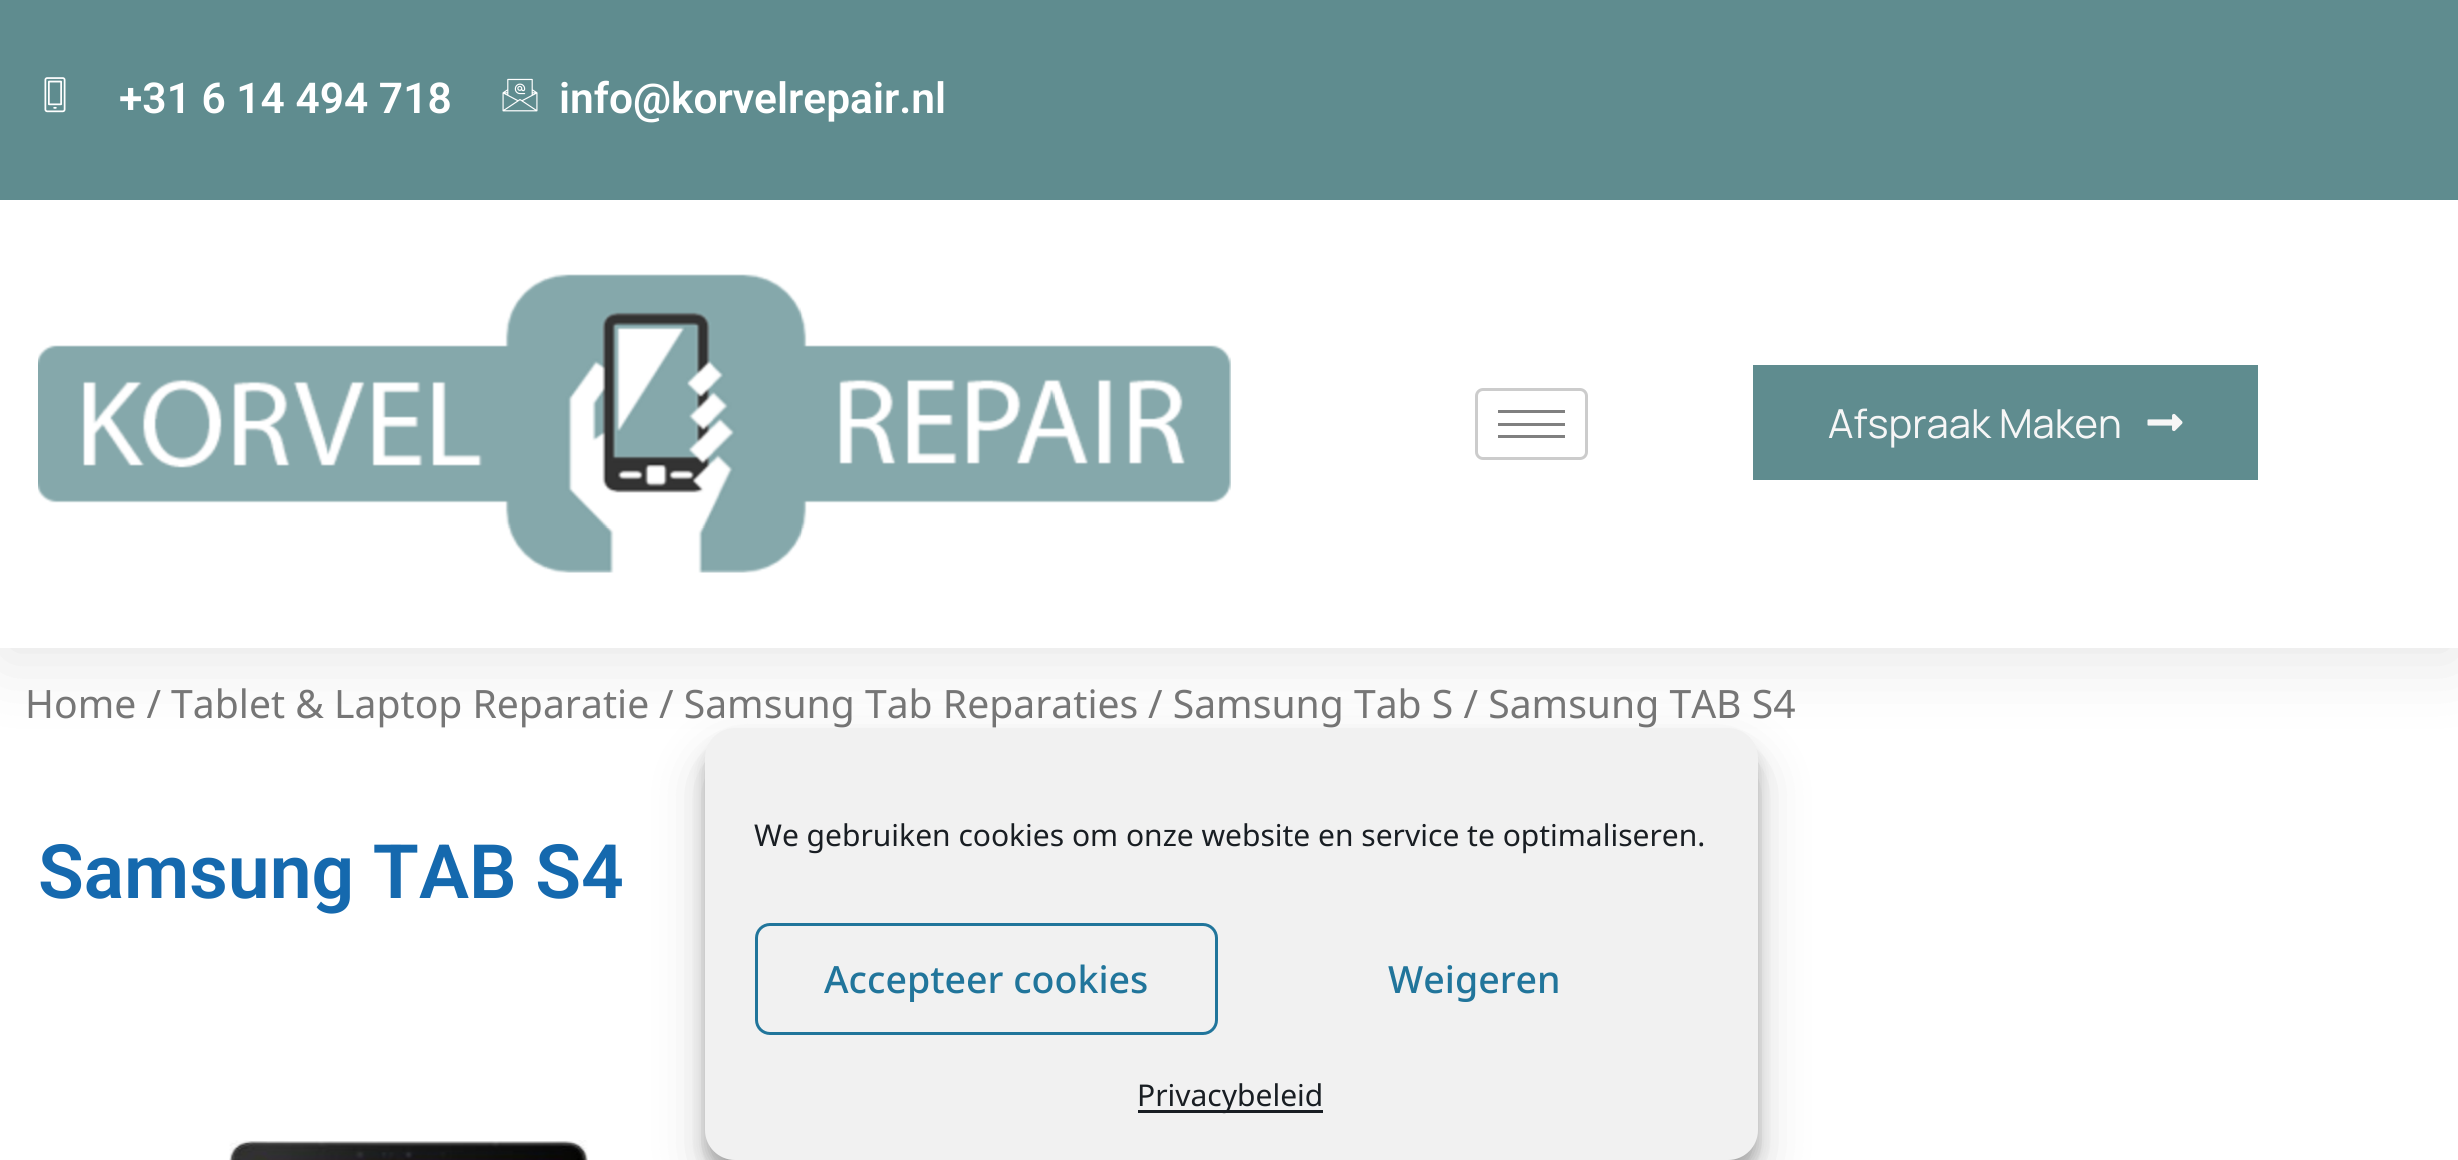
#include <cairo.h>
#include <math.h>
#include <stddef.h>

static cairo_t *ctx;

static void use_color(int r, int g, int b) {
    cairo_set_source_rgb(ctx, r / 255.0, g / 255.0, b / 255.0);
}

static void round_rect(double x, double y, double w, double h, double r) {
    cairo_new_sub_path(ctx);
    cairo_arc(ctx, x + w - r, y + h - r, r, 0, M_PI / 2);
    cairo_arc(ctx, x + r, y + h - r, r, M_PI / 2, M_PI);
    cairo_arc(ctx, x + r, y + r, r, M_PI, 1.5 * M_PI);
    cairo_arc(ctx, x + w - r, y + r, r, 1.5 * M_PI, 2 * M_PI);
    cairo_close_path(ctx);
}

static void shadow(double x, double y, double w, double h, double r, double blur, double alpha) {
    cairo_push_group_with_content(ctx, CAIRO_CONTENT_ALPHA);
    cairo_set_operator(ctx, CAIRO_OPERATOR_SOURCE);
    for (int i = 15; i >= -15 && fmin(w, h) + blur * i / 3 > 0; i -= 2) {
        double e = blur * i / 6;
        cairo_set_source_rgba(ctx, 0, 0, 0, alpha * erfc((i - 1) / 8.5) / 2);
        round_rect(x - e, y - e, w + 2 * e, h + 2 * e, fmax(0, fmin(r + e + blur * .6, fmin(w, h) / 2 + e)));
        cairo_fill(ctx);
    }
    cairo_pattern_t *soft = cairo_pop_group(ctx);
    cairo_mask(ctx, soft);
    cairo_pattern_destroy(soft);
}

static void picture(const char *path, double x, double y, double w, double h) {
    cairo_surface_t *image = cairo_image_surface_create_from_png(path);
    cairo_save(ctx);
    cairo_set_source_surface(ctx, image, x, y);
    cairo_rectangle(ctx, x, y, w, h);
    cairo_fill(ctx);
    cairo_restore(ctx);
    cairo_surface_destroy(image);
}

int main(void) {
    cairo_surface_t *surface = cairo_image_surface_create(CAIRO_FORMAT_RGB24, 2458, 1160);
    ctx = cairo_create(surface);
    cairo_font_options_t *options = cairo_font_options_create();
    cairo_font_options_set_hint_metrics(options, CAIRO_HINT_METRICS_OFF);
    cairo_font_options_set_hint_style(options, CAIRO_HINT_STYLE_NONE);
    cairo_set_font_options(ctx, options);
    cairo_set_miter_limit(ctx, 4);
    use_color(255, 255, 255);
    cairo_paint(ctx);
    use_color(0, 0, 0);
    shadow(0, 13, 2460, 647, 0, 37.5, 0.1);
    use_color(95, 140, 143);
    cairo_rectangle(ctx, 0, 0, 2458, 200);
    cairo_fill(ctx);
    picture("img1.png", 44, 77, 22, 36);
    cairo_select_font_face(ctx, "Roboto SemiBold", CAIRO_FONT_SLANT_NORMAL, CAIRO_FONT_WEIGHT_NORMAL);
    cairo_set_font_size(ctx, 42.5);
    use_color(255, 255, 255);
    cairo_move_to(ctx, 119, 113);
    cairo_show_text(ctx, "+31 6 14 494 718");
    picture("img2.png", 502, 78, 36, 34);
    cairo_move_to(ctx, 559, 113);
    cairo_show_text(ctx, "info@korvelrepair.nl");
    cairo_rectangle(ctx, 0, 200, 2458, 448);
    cairo_fill(ctx);
    picture("img3.png", 38, 274, 1193, 299);
    round_rect(1476.5, 389.5, 110, 69, 6.5);
    use_color(204, 204, 204);
    cairo_set_line_width(ctx, 3);
    cairo_stroke(ctx);
    use_color(128, 128, 128);
    cairo_rectangle(ctx, 1498, 410, 67, 3);
    cairo_fill(ctx);
    cairo_rectangle(ctx, 1498, 423, 67, 3);
    cairo_fill(ctx);
    cairo_rectangle(ctx, 1498, 435, 67, 3);
    cairo_fill(ctx);
    use_color(95, 140, 143);
    cairo_rectangle(ctx, 1753, 365, 505, 115);
    cairo_fill(ctx);
    cairo_select_font_face(ctx, "Manrope", CAIRO_FONT_SLANT_NORMAL, CAIRO_FONT_WEIGHT_NORMAL);
    cairo_set_font_size(ctx, 40);
    use_color(246, 246, 246);
    cairo_move_to(ctx, 1828, 438);
    cairo_show_text(ctx, "Afspraak Maken");
    picture("img4.png", 2147, 413, 36, 19);
    cairo_select_font_face(ctx, "Noto Sans", CAIRO_FONT_SLANT_NORMAL, CAIRO_FONT_WEIGHT_NORMAL);
    cairo_set_font_size(ctx, 39.1);
    use_color(118, 118, 118);
    cairo_move_to(ctx, 25, 718);
    cairo_show_text(ctx, "Home / Tablet & Laptop Reparatie");
    cairo_move_to(ctx, 659, 718);
    cairo_show_text(ctx, "/ Samsung Tab Reparaties");
    cairo_move_to(ctx, 1148, 718);
    cairo_show_text(ctx, "/ Samsung Tab S / Samsung TAB S4");
    cairo_select_font_face(ctx, "Roboto SemiBold", CAIRO_FONT_SLANT_NORMAL, CAIRO_FONT_WEIGHT_NORMAL);
    cairo_set_font_size(ctx, 75);
    use_color(21, 105, 174);
    cairo_move_to(ctx, 38, 898);
    cairo_show_text(ctx, "Samsung TAB S4");
    picture("img5.png", 229, 1140, 359, 20);
    use_color(0, 0, 0);
    shadow(705, 743, 1053, 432, 30, 7.5, 0.23);
    shadow(705, 753, 1053, 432, 30, 25, 0.19);
    use_color(241, 241, 241);
    round_rect(705, 728, 1053, 432, 30);
    cairo_fill(ctx);
    cairo_select_font_face(ctx, "Noto Sans", CAIRO_FONT_SLANT_NORMAL, CAIRO_FONT_WEIGHT_NORMAL);
    cairo_set_font_size(ctx, 30);
    use_color(25, 30, 35);
    cairo_move_to(ctx, 754, 846);
    cairo_show_text(ctx, "We gebruiken cookies om onze website en service te optimaliseren.");
    round_rect(756.5, 924.5, 460, 109, 13.5);
    use_color(33, 117, 155);
    cairo_stroke(ctx);
    cairo_select_font_face(ctx, "Noto Sans Medium", CAIRO_FONT_SLANT_NORMAL, CAIRO_FONT_WEIGHT_NORMAL);
    cairo_set_font_size(ctx, 37.5);
    cairo_move_to(ctx, 824, 993);
    cairo_show_text(ctx, "Accepteer cookies");
    cairo_move_to(ctx, 1388, 993);
    cairo_show_text(ctx, "Weigeren");
    use_color(25, 30, 35);
    cairo_rectangle(ctx, 1138, 1110, 185, 3);
    cairo_fill(ctx);
    cairo_select_font_face(ctx, "Noto Sans", CAIRO_FONT_SLANT_NORMAL, CAIRO_FONT_WEIGHT_NORMAL);
    cairo_set_font_size(ctx, 30);
    cairo_move_to(ctx, 1137, 1106);
    cairo_show_text(ctx, "Privacybeleid");
    cairo_surface_write_to_png(surface, "result.png");
    cairo_font_options_destroy(options);
    cairo_destroy(ctx);
    cairo_surface_destroy(surface);
    return 0;
}
